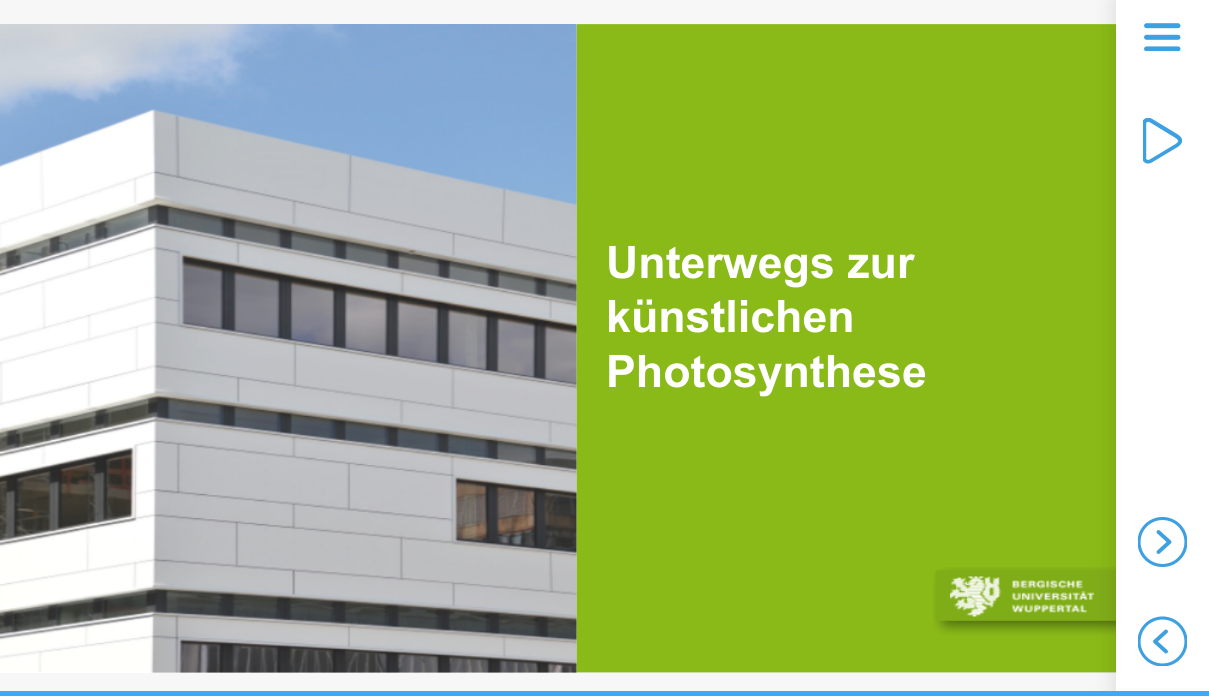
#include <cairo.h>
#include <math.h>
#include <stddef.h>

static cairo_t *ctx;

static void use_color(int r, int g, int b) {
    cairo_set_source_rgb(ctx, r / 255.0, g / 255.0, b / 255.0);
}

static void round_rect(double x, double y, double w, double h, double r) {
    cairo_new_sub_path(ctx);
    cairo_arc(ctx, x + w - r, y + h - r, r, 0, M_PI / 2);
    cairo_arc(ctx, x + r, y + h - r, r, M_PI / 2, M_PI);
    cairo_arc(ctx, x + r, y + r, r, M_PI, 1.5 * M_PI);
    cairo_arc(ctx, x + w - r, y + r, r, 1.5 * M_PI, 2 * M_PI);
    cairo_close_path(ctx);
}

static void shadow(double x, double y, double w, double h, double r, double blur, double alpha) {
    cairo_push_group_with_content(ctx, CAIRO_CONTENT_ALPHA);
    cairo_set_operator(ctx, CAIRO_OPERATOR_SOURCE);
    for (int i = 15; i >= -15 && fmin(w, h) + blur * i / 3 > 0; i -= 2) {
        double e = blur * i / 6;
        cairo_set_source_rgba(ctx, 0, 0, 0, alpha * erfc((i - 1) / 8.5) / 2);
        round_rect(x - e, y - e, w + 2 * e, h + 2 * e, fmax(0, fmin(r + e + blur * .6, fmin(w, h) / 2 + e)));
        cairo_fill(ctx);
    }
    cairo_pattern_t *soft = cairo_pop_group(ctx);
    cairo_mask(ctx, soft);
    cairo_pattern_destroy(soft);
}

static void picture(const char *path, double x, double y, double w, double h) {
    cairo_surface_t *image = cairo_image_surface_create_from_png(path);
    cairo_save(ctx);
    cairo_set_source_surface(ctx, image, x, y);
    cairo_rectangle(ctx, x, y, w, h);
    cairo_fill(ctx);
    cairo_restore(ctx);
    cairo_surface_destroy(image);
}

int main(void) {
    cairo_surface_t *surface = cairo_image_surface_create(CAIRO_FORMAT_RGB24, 1209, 696);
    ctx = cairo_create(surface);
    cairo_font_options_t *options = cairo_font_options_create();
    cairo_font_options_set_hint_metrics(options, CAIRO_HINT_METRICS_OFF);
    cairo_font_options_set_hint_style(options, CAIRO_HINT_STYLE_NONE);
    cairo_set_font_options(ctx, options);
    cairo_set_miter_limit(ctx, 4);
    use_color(247, 247, 247);
    cairo_paint(ctx);
    use_color(255, 255, 255);
    cairo_rectangle(ctx, 0, 24, 1116, 649);
    cairo_fill(ctx);
    picture("img1.png", 575, 24, 541, 649);
    picture("img2.png", 933, 567, 183, 68);
    picture("img3.png", 950, 576, 144, 41);
    picture("img4.png", 0, 24, 577, 649);
    cairo_select_font_face(ctx, "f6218", CAIRO_FONT_SLANT_NORMAL, CAIRO_FONT_WEIGHT_BOLD);
    cairo_set_font_size(ctx, 44.75);
    cairo_move_to(ctx, 606, 278);
    cairo_show_text(ctx, "Unterwegs zur");
    cairo_move_to(ctx, 606, 332);
    cairo_show_text(ctx, "künstlichen");
    cairo_move_to(ctx, 606, 387);
    cairo_show_text(ctx, "Photosynthese");
    use_color(0, 0, 0);
    shadow(1113, 0, 93, 696, 0, 10, 0.1);
    use_color(255, 255, 255);
    cairo_rectangle(ctx, 1116, 0, 93, 691);
    cairo_fill(ctx);
    picture("img5.png", 1144, 23, 37, 28);
    picture("img6.png", 1143, 118, 39, 46);
    cairo_save(ctx);
    cairo_rectangle(ctx, 1138, 517, 49, 50);
    cairo_clip(ctx);
    cairo_arc(ctx, 1162.5, 542, 23.5, 0, 2 * M_PI);
    use_color(61, 160, 225);
    cairo_set_line_width(ctx, 3.1);
    cairo_stroke(ctx);
    cairo_restore(ctx);
    cairo_new_path(ctx);
    cairo_move_to(ctx, 1158.5, 552);
    cairo_line_to(ctx, 1169.5, 542);
    cairo_line_to(ctx, 1158.5, 532);
    use_color(61, 160, 225);
    cairo_set_line_width(ctx, 3.9);
    cairo_set_line_cap(ctx, CAIRO_LINE_CAP_ROUND);
    cairo_set_line_join(ctx, CAIRO_LINE_JOIN_ROUND);
    cairo_stroke(ctx);
    cairo_save(ctx);
    cairo_rectangle(ctx, 1138, 616, 49, 50);
    cairo_clip(ctx);
    cairo_arc(ctx, 1162.5, 641.5, 23.5, 0, 2 * M_PI);
    cairo_set_line_width(ctx, 3.1);
    cairo_set_line_cap(ctx, CAIRO_LINE_CAP_BUTT);
    cairo_set_line_join(ctx, CAIRO_LINE_JOIN_MITER);
    cairo_stroke(ctx);
    cairo_restore(ctx);
    cairo_new_path(ctx);
    cairo_move_to(ctx, 1166, 631.5);
    cairo_line_to(ctx, 1155, 641.5);
    cairo_line_to(ctx, 1166, 651.5);
    cairo_stroke(ctx);
    use_color(63, 169, 245);
    cairo_rectangle(ctx, 0, 691, 1209, 5);
    cairo_fill(ctx);
    cairo_surface_write_to_png(surface, "result.png");
    cairo_font_options_destroy(options);
    cairo_destroy(ctx);
    cairo_surface_destroy(surface);
    return 0;
}
